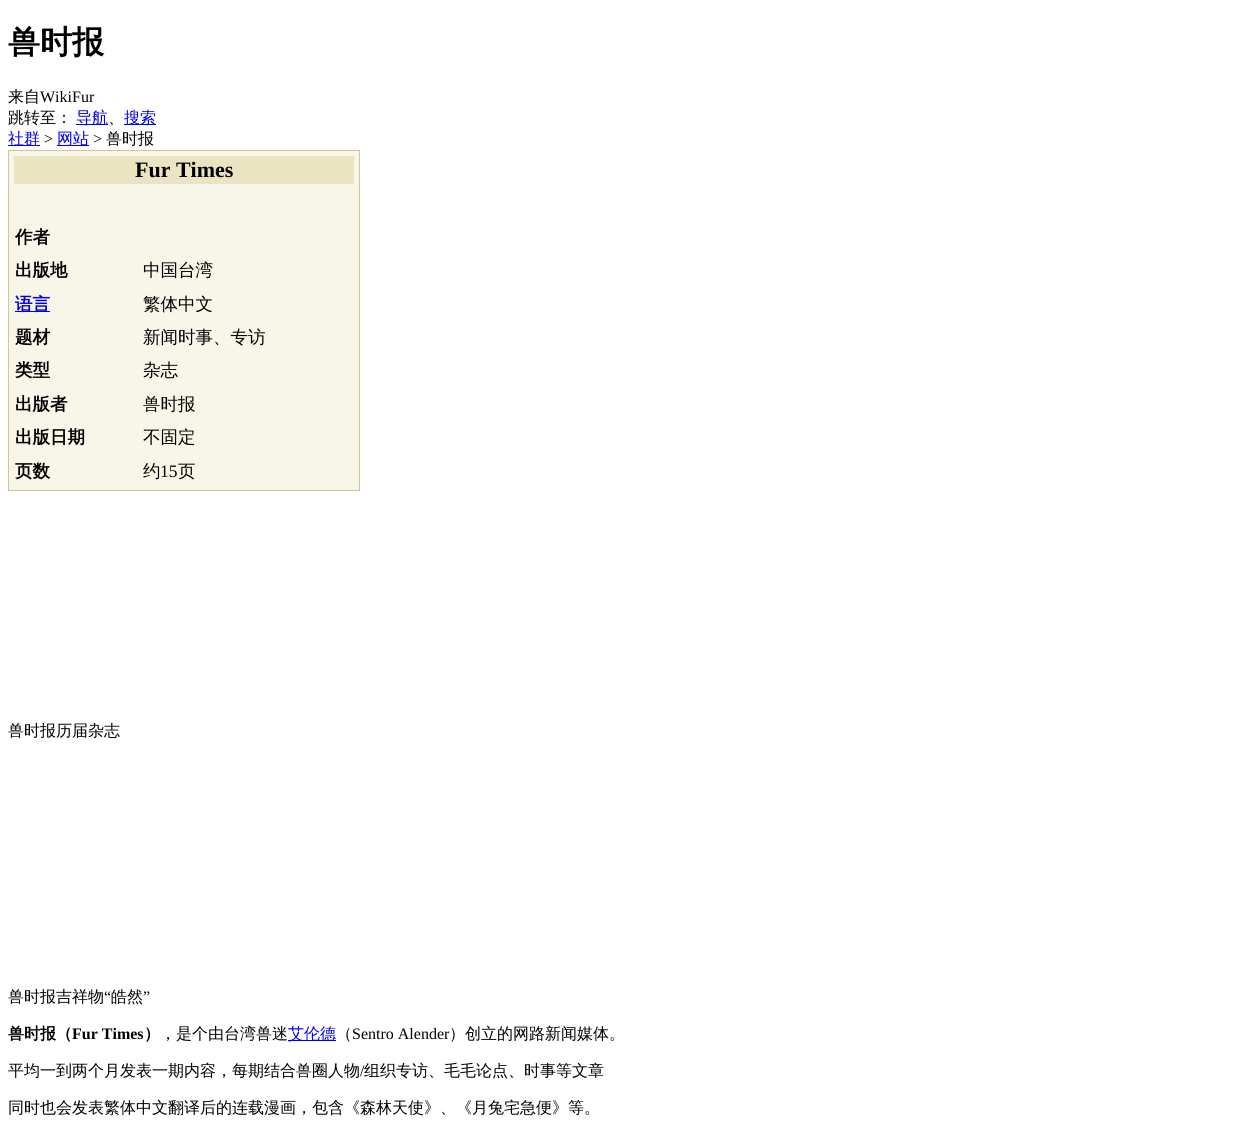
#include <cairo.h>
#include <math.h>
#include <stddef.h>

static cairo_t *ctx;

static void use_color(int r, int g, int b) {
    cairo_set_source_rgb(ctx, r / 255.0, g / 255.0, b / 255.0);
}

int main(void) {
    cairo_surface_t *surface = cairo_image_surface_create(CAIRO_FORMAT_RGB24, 1237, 1128);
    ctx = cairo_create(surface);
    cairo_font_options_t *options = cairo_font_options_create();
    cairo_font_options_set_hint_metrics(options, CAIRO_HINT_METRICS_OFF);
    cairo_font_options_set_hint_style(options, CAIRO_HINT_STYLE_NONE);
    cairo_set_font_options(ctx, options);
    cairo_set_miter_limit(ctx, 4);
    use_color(255, 255, 255);
    cairo_paint(ctx);
    cairo_select_font_face(ctx, "WenQuanYi Zen Hei", CAIRO_FONT_SLANT_NORMAL, CAIRO_FONT_WEIGHT_BOLD);
    cairo_set_font_size(ctx, 32);
    use_color(0, 0, 0);
    cairo_move_to(ctx, 8, 53);
    cairo_show_text(ctx, "兽时报");
    cairo_select_font_face(ctx, "WenQuanYi Zen Hei Medium", CAIRO_FONT_SLANT_NORMAL, CAIRO_FONT_WEIGHT_NORMAL);
    cairo_set_font_size(ctx, 16);
    cairo_move_to(ctx, 8, 102);
    cairo_show_text(ctx, "来自");
    cairo_select_font_face(ctx, "Liberation Serif", CAIRO_FONT_SLANT_NORMAL, CAIRO_FONT_WEIGHT_NORMAL);
    cairo_move_to(ctx, 40, 102);
    cairo_show_text(ctx, "WikiFur");
    cairo_select_font_face(ctx, "WenQuanYi Zen Hei Medium", CAIRO_FONT_SLANT_NORMAL, CAIRO_FONT_WEIGHT_NORMAL);
    cairo_move_to(ctx, 8, 123);
    cairo_show_text(ctx, "跳转至：");
    use_color(0, 0, 238);
    cairo_rectangle(ctx, 76, 124, 32, 1);
    cairo_fill(ctx);
    cairo_move_to(ctx, 76, 123);
    cairo_show_text(ctx, "导航");
    use_color(0, 0, 0);
    cairo_move_to(ctx, 108, 123);
    cairo_show_text(ctx, "、");
    use_color(0, 0, 238);
    cairo_rectangle(ctx, 124, 124, 32, 1);
    cairo_fill(ctx);
    cairo_move_to(ctx, 124, 123);
    cairo_show_text(ctx, "搜索");
    cairo_rectangle(ctx, 8, 145, 32, 1);
    cairo_fill(ctx);
    cairo_move_to(ctx, 8, 144);
    cairo_show_text(ctx, "社群");
    cairo_select_font_face(ctx, "Liberation Serif", CAIRO_FONT_SLANT_NORMAL, CAIRO_FONT_WEIGHT_NORMAL);
    use_color(0, 0, 0);
    cairo_move_to(ctx, 44, 144);
    cairo_show_text(ctx, ">");
    use_color(0, 0, 238);
    cairo_rectangle(ctx, 57, 145, 32, 1);
    cairo_fill(ctx);
    cairo_select_font_face(ctx, "WenQuanYi Zen Hei Medium", CAIRO_FONT_SLANT_NORMAL, CAIRO_FONT_WEIGHT_NORMAL);
    cairo_move_to(ctx, 57, 144);
    cairo_show_text(ctx, "网站");
    cairo_select_font_face(ctx, "Liberation Serif", CAIRO_FONT_SLANT_NORMAL, CAIRO_FONT_WEIGHT_NORMAL);
    use_color(0, 0, 0);
    cairo_move_to(ctx, 93, 144);
    cairo_show_text(ctx, ">");
    cairo_select_font_face(ctx, "WenQuanYi Zen Hei Medium", CAIRO_FONT_SLANT_NORMAL, CAIRO_FONT_WEIGHT_NORMAL);
    cairo_move_to(ctx, 106, 144);
    cairo_show_text(ctx, "兽时报");
    use_color(248, 245, 233);
    cairo_rectangle(ctx, 8.5, 150.5, 351, 340);
    cairo_fill_preserve(ctx);
    use_color(211, 198, 146);
    cairo_set_line_width(ctx, 1);
    cairo_stroke(ctx);
    use_color(234, 228, 194);
    cairo_rectangle(ctx, 14, 156, 340, 28);
    cairo_fill(ctx);
    cairo_select_font_face(ctx, "Liberation Serif", CAIRO_FONT_SLANT_NORMAL, CAIRO_FONT_WEIGHT_BOLD);
    cairo_set_font_size(ctx, 22);
    use_color(0, 0, 0);
    cairo_move_to(ctx, 135, 177);
    cairo_show_text(ctx, "Fur Times");
    cairo_select_font_face(ctx, "WenQuanYi Zen Hei", CAIRO_FONT_SLANT_NORMAL, CAIRO_FONT_WEIGHT_BOLD);
    cairo_set_font_size(ctx, 17.5);
    cairo_move_to(ctx, 15, 243);
    cairo_show_text(ctx, "作者");
    cairo_move_to(ctx, 15, 276);
    cairo_show_text(ctx, "出版地");
    cairo_select_font_face(ctx, "WenQuanYi Zen Hei Medium", CAIRO_FONT_SLANT_NORMAL, CAIRO_FONT_WEIGHT_NORMAL);
    cairo_move_to(ctx, 143, 276);
    cairo_show_text(ctx, "中国台湾");
    use_color(0, 0, 238);
    cairo_rectangle(ctx, 15, 311, 35, 1);
    cairo_fill(ctx);
    cairo_select_font_face(ctx, "WenQuanYi Zen Hei", CAIRO_FONT_SLANT_NORMAL, CAIRO_FONT_WEIGHT_BOLD);
    cairo_move_to(ctx, 15, 310);
    cairo_show_text(ctx, "语言");
    cairo_select_font_face(ctx, "WenQuanYi Zen Hei Medium", CAIRO_FONT_SLANT_NORMAL, CAIRO_FONT_WEIGHT_NORMAL);
    use_color(0, 0, 0);
    cairo_move_to(ctx, 143, 310);
    cairo_show_text(ctx, "繁体中文");
    cairo_select_font_face(ctx, "WenQuanYi Zen Hei", CAIRO_FONT_SLANT_NORMAL, CAIRO_FONT_WEIGHT_BOLD);
    cairo_move_to(ctx, 15, 343);
    cairo_show_text(ctx, "题材");
    cairo_select_font_face(ctx, "WenQuanYi Zen Hei Medium", CAIRO_FONT_SLANT_NORMAL, CAIRO_FONT_WEIGHT_NORMAL);
    cairo_move_to(ctx, 143, 343);
    cairo_show_text(ctx, "新闻时事、专访");
    cairo_select_font_face(ctx, "WenQuanYi Zen Hei", CAIRO_FONT_SLANT_NORMAL, CAIRO_FONT_WEIGHT_BOLD);
    cairo_move_to(ctx, 15, 376);
    cairo_show_text(ctx, "类型");
    cairo_select_font_face(ctx, "WenQuanYi Zen Hei Medium", CAIRO_FONT_SLANT_NORMAL, CAIRO_FONT_WEIGHT_NORMAL);
    cairo_move_to(ctx, 143, 376);
    cairo_show_text(ctx, "杂志");
    cairo_select_font_face(ctx, "WenQuanYi Zen Hei", CAIRO_FONT_SLANT_NORMAL, CAIRO_FONT_WEIGHT_BOLD);
    cairo_move_to(ctx, 15, 410);
    cairo_show_text(ctx, "出版者");
    cairo_select_font_face(ctx, "WenQuanYi Zen Hei Medium", CAIRO_FONT_SLANT_NORMAL, CAIRO_FONT_WEIGHT_NORMAL);
    cairo_move_to(ctx, 143, 410);
    cairo_show_text(ctx, "兽时报");
    cairo_select_font_face(ctx, "WenQuanYi Zen Hei", CAIRO_FONT_SLANT_NORMAL, CAIRO_FONT_WEIGHT_BOLD);
    cairo_move_to(ctx, 15, 443);
    cairo_show_text(ctx, "出版日期");
    cairo_select_font_face(ctx, "WenQuanYi Zen Hei Medium", CAIRO_FONT_SLANT_NORMAL, CAIRO_FONT_WEIGHT_NORMAL);
    cairo_move_to(ctx, 143, 443);
    cairo_show_text(ctx, "不固定");
    cairo_select_font_face(ctx, "WenQuanYi Zen Hei", CAIRO_FONT_SLANT_NORMAL, CAIRO_FONT_WEIGHT_BOLD);
    cairo_move_to(ctx, 15, 477);
    cairo_show_text(ctx, "页数");
    cairo_select_font_face(ctx, "WenQuanYi Zen Hei Medium", CAIRO_FONT_SLANT_NORMAL, CAIRO_FONT_WEIGHT_NORMAL);
    cairo_move_to(ctx, 143, 477);
    cairo_show_text(ctx, "约");
    cairo_select_font_face(ctx, "Liberation Serif", CAIRO_FONT_SLANT_NORMAL, CAIRO_FONT_WEIGHT_NORMAL);
    cairo_move_to(ctx, 160, 477);
    cairo_show_text(ctx, "15");
    cairo_select_font_face(ctx, "WenQuanYi Zen Hei Medium", CAIRO_FONT_SLANT_NORMAL, CAIRO_FONT_WEIGHT_NORMAL);
    cairo_move_to(ctx, 178, 477);
    cairo_show_text(ctx, "页");
    cairo_set_font_size(ctx, 16);
    cairo_move_to(ctx, 8, 736);
    cairo_show_text(ctx, "兽时报历届杂志");
    cairo_move_to(ctx, 8, 1002);
    cairo_show_text(ctx, "兽时报吉祥物");
    cairo_select_font_face(ctx, "Liberation Serif", CAIRO_FONT_SLANT_NORMAL, CAIRO_FONT_WEIGHT_NORMAL);
    cairo_move_to(ctx, 104, 1002);
    cairo_show_text(ctx, "“");
    cairo_select_font_face(ctx, "WenQuanYi Zen Hei Medium", CAIRO_FONT_SLANT_NORMAL, CAIRO_FONT_WEIGHT_NORMAL);
    cairo_move_to(ctx, 111, 1002);
    cairo_show_text(ctx, "皓然");
    cairo_select_font_face(ctx, "Liberation Serif", CAIRO_FONT_SLANT_NORMAL, CAIRO_FONT_WEIGHT_NORMAL);
    cairo_move_to(ctx, 143, 1002);
    cairo_show_text(ctx, "”");
    cairo_select_font_face(ctx, "WenQuanYi Zen Hei", CAIRO_FONT_SLANT_NORMAL, CAIRO_FONT_WEIGHT_BOLD);
    cairo_move_to(ctx, 8, 1039);
    cairo_show_text(ctx, "兽时报（");
    cairo_select_font_face(ctx, "Liberation Serif", CAIRO_FONT_SLANT_NORMAL, CAIRO_FONT_WEIGHT_BOLD);
    cairo_move_to(ctx, 72, 1039);
    cairo_show_text(ctx, "Fur Times");
    cairo_select_font_face(ctx, "WenQuanYi Zen Hei", CAIRO_FONT_SLANT_NORMAL, CAIRO_FONT_WEIGHT_BOLD);
    cairo_move_to(ctx, 144, 1039);
    cairo_show_text(ctx, "）");
    cairo_select_font_face(ctx, "WenQuanYi Zen Hei Medium", CAIRO_FONT_SLANT_NORMAL, CAIRO_FONT_WEIGHT_NORMAL);
    cairo_move_to(ctx, 160, 1039);
    cairo_show_text(ctx, "，是个由台湾兽迷");
    use_color(0, 0, 238);
    cairo_rectangle(ctx, 288, 1040, 48, 1);
    cairo_fill(ctx);
    cairo_move_to(ctx, 288, 1039);
    cairo_show_text(ctx, "艾伦德");
    use_color(0, 0, 0);
    cairo_move_to(ctx, 336, 1039);
    cairo_show_text(ctx, "（");
    cairo_select_font_face(ctx, "Liberation Serif", CAIRO_FONT_SLANT_NORMAL, CAIRO_FONT_WEIGHT_NORMAL);
    cairo_move_to(ctx, 352, 1039);
    cairo_show_text(ctx, "Sentro Alender");
    cairo_select_font_face(ctx, "WenQuanYi Zen Hei Medium", CAIRO_FONT_SLANT_NORMAL, CAIRO_FONT_WEIGHT_NORMAL);
    cairo_move_to(ctx, 449, 1039);
    cairo_show_text(ctx, "）创立的网路新闻媒体。");
    cairo_move_to(ctx, 8, 1076);
    cairo_show_text(ctx, "平均一到两个月发表一期内容，每期结合兽圈人物");
    cairo_select_font_face(ctx, "Liberation Serif", CAIRO_FONT_SLANT_NORMAL, CAIRO_FONT_WEIGHT_NORMAL);
    cairo_move_to(ctx, 360, 1076);
    cairo_show_text(ctx, "/");
    cairo_select_font_face(ctx, "WenQuanYi Zen Hei Medium", CAIRO_FONT_SLANT_NORMAL, CAIRO_FONT_WEIGHT_NORMAL);
    cairo_move_to(ctx, 364, 1076);
    cairo_show_text(ctx, "组织专访、毛毛论点、时事等文章");
    cairo_move_to(ctx, 8, 1113);
    cairo_show_text(ctx, "同时也会发表繁体中文翻译后的连载漫画，包含《森林天使》、《月兔宅急便》等。");
    cairo_surface_write_to_png(surface, "result.png");
    cairo_font_options_destroy(options);
    cairo_destroy(ctx);
    cairo_surface_destroy(surface);
    return 0;
}
